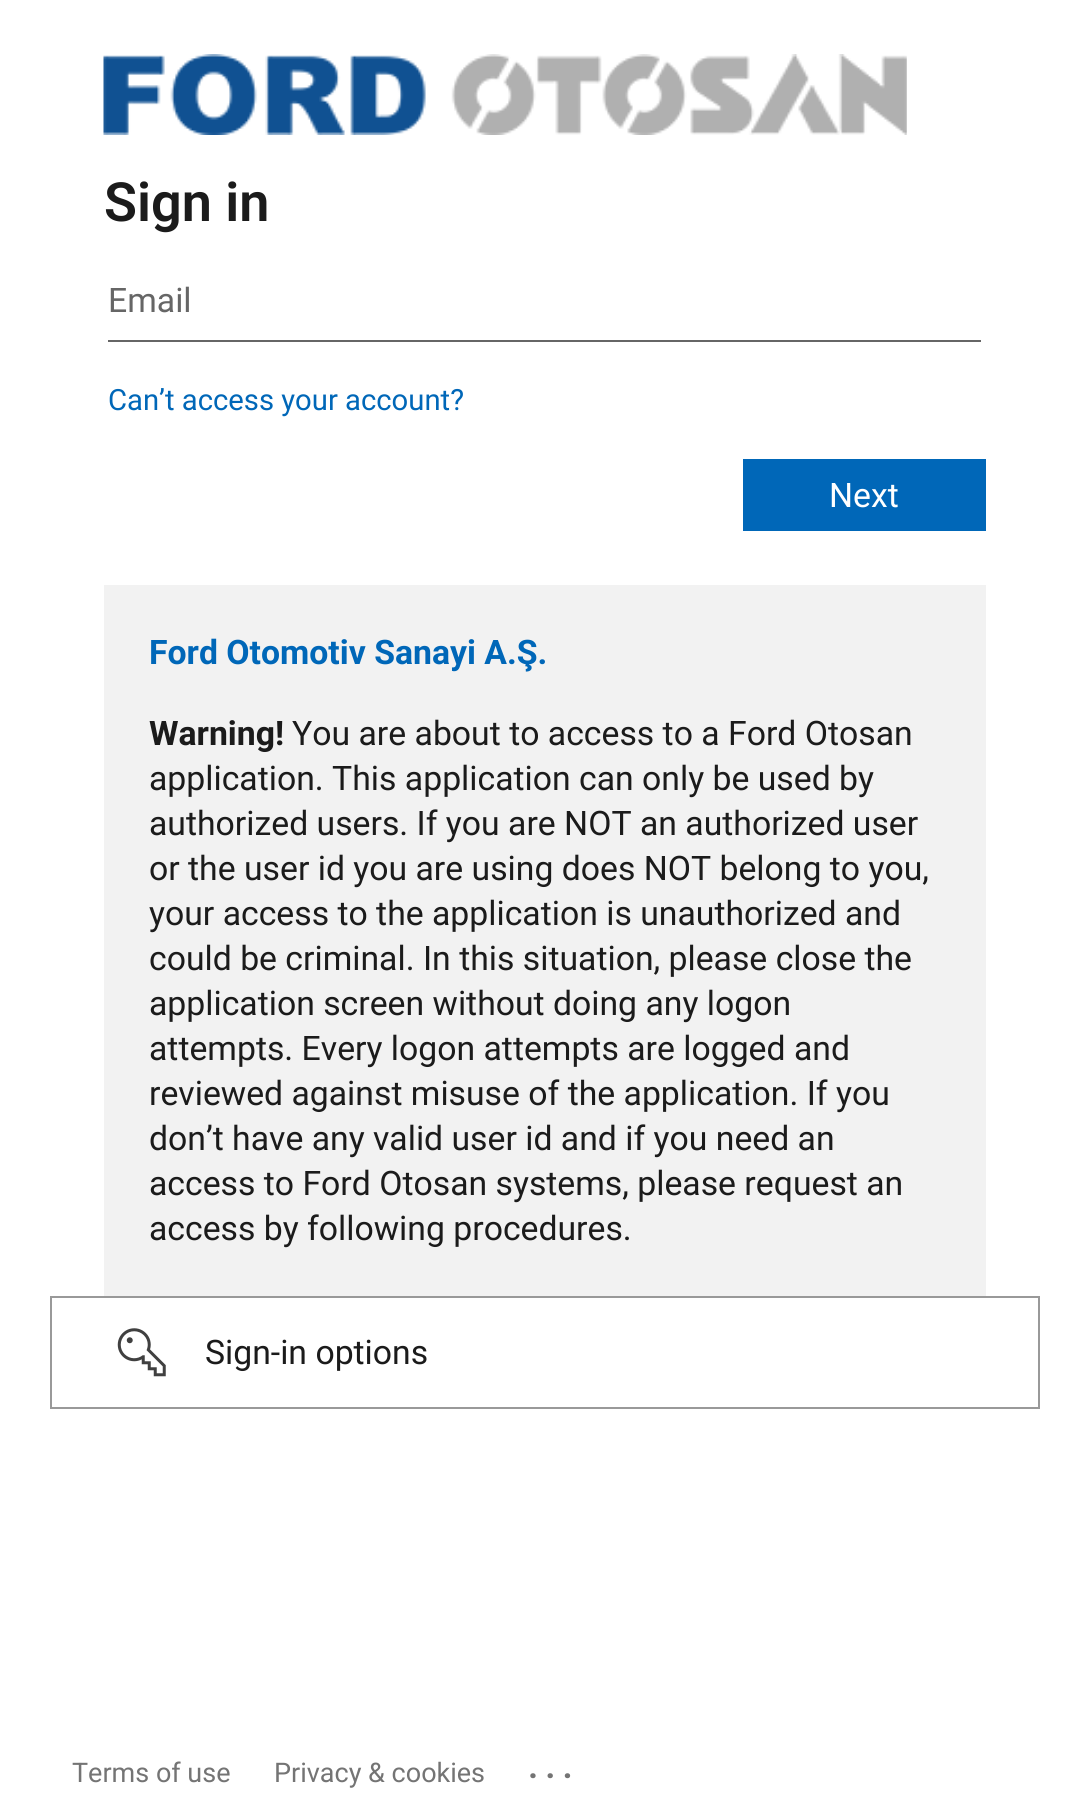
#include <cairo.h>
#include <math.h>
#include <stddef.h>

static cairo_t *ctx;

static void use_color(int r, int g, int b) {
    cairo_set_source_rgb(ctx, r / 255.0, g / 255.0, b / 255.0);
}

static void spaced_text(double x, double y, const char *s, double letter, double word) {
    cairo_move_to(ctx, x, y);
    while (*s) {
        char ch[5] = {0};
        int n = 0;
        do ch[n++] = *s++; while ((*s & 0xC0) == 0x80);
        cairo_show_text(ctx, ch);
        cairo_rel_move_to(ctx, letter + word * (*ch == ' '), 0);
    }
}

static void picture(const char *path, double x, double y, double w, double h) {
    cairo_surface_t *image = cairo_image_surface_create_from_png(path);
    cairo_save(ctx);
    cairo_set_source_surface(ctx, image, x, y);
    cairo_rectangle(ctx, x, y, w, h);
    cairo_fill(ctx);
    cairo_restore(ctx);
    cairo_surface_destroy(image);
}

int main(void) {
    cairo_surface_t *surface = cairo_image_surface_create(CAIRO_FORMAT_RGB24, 1087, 1804);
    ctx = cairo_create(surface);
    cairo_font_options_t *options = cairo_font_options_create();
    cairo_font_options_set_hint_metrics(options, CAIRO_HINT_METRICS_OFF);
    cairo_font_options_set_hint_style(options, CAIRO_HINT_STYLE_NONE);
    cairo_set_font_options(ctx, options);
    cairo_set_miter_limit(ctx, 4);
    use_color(255, 255, 255);
    cairo_paint(ctx);
    picture("img1.png", 103, 54, 804, 81);
    cairo_select_font_face(ctx, "Roboto SemiBold", CAIRO_FONT_SLANT_NORMAL, CAIRO_FONT_WEIGHT_NORMAL);
    cairo_set_font_size(ctx, 54);
    use_color(27, 27, 27);
    cairo_move_to(ctx, 104, 221);
    cairo_show_text(ctx, "Sign in");
    use_color(102, 102, 102);
    cairo_rectangle(ctx, 108, 340, 873, 2);
    cairo_fill(ctx);
    cairo_select_font_face(ctx, "Roboto", CAIRO_FONT_SLANT_NORMAL, CAIRO_FONT_WEIGHT_NORMAL);
    cairo_set_font_size(ctx, 33.75);
    cairo_move_to(ctx, 108, 312);
    cairo_show_text(ctx, "Email");
    cairo_set_font_size(ctx, 29.25);
    use_color(0, 103, 184);
    cairo_move_to(ctx, 108, 410);
    cairo_show_text(ctx, "Can’t access your account?");
    cairo_rectangle(ctx, 743, 459, 243, 72);
    cairo_fill(ctx);
    cairo_set_font_size(ctx, 33.75);
    use_color(255, 255, 255);
    cairo_move_to(ctx, 829, 507);
    cairo_show_text(ctx, "Next");
    use_color(242, 242, 242);
    cairo_rectangle(ctx, 104, 585, 882, 711);
    cairo_fill(ctx);
    cairo_select_font_face(ctx, "Roboto", CAIRO_FONT_SLANT_NORMAL, CAIRO_FONT_WEIGHT_BOLD);
    use_color(0, 103, 184);
    cairo_move_to(ctx, 149, 664);
    cairo_show_text(ctx, "Ford Otomotiv Sanayi A.Ş.");
    use_color(27, 27, 27);
    cairo_move_to(ctx, 149, 745);
    cairo_show_text(ctx, "Warning!");
    cairo_select_font_face(ctx, "Roboto", CAIRO_FONT_SLANT_NORMAL, CAIRO_FONT_WEIGHT_NORMAL);
    cairo_move_to(ctx, 292, 745);
    cairo_show_text(ctx, "You are about to access to a Ford Otosan");
    cairo_move_to(ctx, 149, 790);
    cairo_show_text(ctx, "application. This application can only be used by");
    cairo_move_to(ctx, 149, 835);
    cairo_show_text(ctx, "authorized users. If you are NOT an authorized user");
    cairo_move_to(ctx, 149, 880);
    cairo_show_text(ctx, "or the user id you are using does NOT belong to you,");
    cairo_move_to(ctx, 149, 925);
    cairo_show_text(ctx, "your access to the application is unauthorized and");
    cairo_move_to(ctx, 149, 970);
    cairo_show_text(ctx, "could be criminal. In this situation, please close the");
    cairo_move_to(ctx, 149, 1015);
    cairo_show_text(ctx, "application screen without doing any logon");
    cairo_move_to(ctx, 149, 1060);
    cairo_show_text(ctx, "attempts. Every logon attempts are logged and");
    cairo_move_to(ctx, 149, 1105);
    cairo_show_text(ctx, "reviewed against misuse of the application. If you");
    cairo_move_to(ctx, 149, 1150);
    cairo_show_text(ctx, "don’t have any valid user id and if you need an");
    cairo_move_to(ctx, 149, 1195);
    cairo_show_text(ctx, "access to Ford Otosan systems, please request an");
    cairo_move_to(ctx, 149, 1240);
    cairo_show_text(ctx, "access by following procedures.");
    cairo_rectangle(ctx, 51, 1297, 988, 111);
    use_color(153, 153, 153);
    cairo_stroke(ctx);
    picture("img2.png", 117, 1328, 49, 49);
    use_color(27, 27, 27);
    cairo_move_to(ctx, 205, 1364);
    cairo_show_text(ctx, "Sign-in options");
    cairo_set_font_size(ctx, 27);
    use_color(116, 116, 116);
    cairo_move_to(ctx, 72, 1782);
    cairo_show_text(ctx, "Terms of use");
    cairo_move_to(ctx, 274, 1782);
    cairo_show_text(ctx, "Privacy & cookies");
    cairo_select_font_face(ctx, "Roboto SemiBold", CAIRO_FONT_SLANT_NORMAL, CAIRO_FONT_WEIGHT_NORMAL);
    cairo_set_font_size(ctx, 36);
    spaced_text(528, 1778, "...", 7, 0);
    cairo_surface_write_to_png(surface, "result.png");
    cairo_font_options_destroy(options);
    cairo_destroy(ctx);
    cairo_surface_destroy(surface);
    return 0;
}
